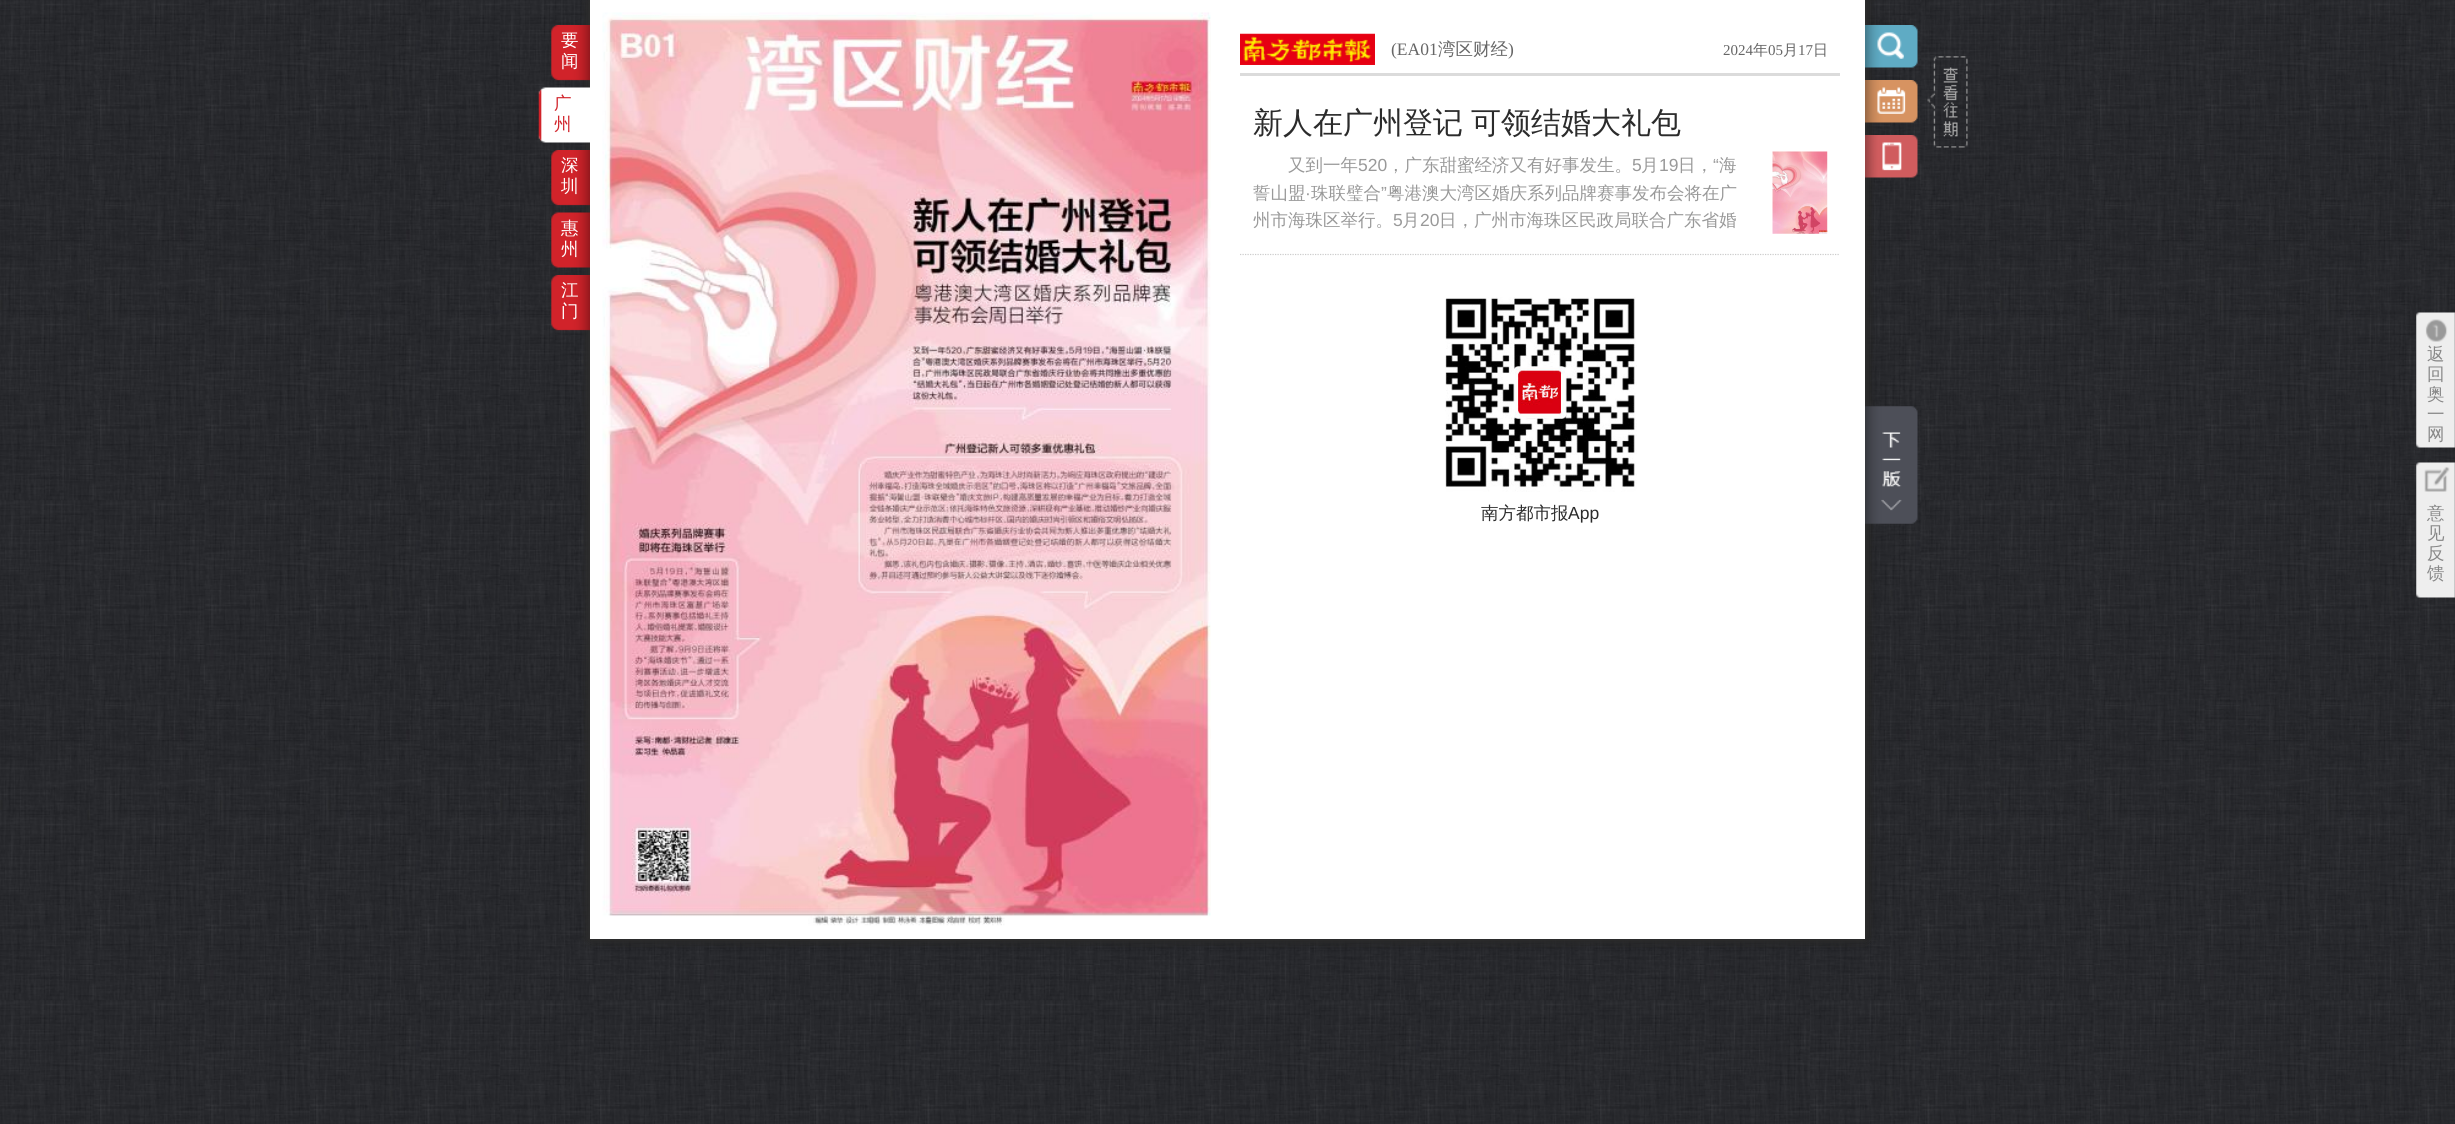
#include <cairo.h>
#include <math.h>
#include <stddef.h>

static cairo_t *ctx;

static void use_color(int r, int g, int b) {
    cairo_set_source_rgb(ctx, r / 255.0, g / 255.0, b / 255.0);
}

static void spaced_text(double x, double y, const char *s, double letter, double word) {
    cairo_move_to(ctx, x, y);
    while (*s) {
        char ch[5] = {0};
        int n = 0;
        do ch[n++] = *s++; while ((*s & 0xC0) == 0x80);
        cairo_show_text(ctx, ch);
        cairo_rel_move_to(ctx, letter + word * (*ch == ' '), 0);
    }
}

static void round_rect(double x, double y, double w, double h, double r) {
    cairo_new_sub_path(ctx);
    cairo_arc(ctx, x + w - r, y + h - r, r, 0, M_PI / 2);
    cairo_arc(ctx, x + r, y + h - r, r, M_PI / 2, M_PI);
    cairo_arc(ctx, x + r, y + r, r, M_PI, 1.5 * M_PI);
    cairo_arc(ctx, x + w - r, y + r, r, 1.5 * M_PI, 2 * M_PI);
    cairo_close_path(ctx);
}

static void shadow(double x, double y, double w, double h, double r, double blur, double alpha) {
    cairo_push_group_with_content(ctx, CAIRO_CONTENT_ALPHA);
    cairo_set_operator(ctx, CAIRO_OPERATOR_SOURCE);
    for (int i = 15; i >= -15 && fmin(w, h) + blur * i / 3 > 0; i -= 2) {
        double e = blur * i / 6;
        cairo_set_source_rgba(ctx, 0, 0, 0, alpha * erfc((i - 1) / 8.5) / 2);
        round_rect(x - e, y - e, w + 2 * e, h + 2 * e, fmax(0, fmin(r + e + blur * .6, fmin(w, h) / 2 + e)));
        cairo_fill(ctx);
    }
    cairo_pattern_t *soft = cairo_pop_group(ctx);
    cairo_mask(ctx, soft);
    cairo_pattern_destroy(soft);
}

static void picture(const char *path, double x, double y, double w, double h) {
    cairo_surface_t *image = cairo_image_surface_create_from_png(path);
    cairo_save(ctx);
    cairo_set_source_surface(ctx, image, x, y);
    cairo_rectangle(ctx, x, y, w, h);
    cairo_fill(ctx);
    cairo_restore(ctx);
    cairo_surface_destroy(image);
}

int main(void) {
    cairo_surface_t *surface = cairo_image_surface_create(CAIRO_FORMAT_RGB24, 2455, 1124);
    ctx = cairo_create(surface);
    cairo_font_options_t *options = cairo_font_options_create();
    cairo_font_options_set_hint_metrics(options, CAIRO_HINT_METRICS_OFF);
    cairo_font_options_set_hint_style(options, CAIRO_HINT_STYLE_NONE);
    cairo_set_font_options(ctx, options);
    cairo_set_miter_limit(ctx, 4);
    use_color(255, 255, 255);
    cairo_paint(ctx);
    picture("img1.png", 0, 0, 2455, 1124);
    use_color(17, 17, 17);
    shadow(591, -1, 1275, 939, 0, 5, 1);
    shadow(591, 1, 1275, 939, 0, 5, 1);
    use_color(51, 51, 51);
    shadow(591, -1, 1275, 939, 0, 6, 1);
    shadow(589, 1, 1275, 939, 0, 5, 1);
    picture("img2.png", 551, 25, 39, 56);
    cairo_select_font_face(ctx, "WenQuanYi Zen Hei Medium", CAIRO_FONT_SLANT_NORMAL, CAIRO_FONT_WEIGHT_NORMAL);
    cairo_set_font_size(ctx, 17.5);
    use_color(255, 255, 255);
    cairo_move_to(ctx, 561, 46);
    cairo_show_text(ctx, "要");
    cairo_move_to(ctx, 561, 67);
    cairo_show_text(ctx, "闻");
    picture("img3.png", 538, 87, 52, 56);
    use_color(209, 35, 42);
    cairo_move_to(ctx, 554, 109);
    cairo_show_text(ctx, "广");
    cairo_move_to(ctx, 554, 130);
    cairo_show_text(ctx, "州");
    picture("img4.png", 551, 150, 39, 56);
    use_color(255, 255, 255);
    cairo_move_to(ctx, 561, 171);
    cairo_show_text(ctx, "深");
    cairo_move_to(ctx, 561, 192);
    cairo_show_text(ctx, "圳");
    picture("img5.png", 551, 212, 39, 56);
    cairo_move_to(ctx, 561, 234);
    cairo_show_text(ctx, "惠");
    cairo_move_to(ctx, 561, 255);
    cairo_show_text(ctx, "州");
    picture("img6.png", 551, 275, 39, 56);
    cairo_move_to(ctx, 561, 296);
    cairo_show_text(ctx, "江");
    cairo_move_to(ctx, 561, 317);
    cairo_show_text(ctx, "门");
    cairo_rectangle(ctx, 590, 0, 1275, 939);
    cairo_fill(ctx);
    picture("img7.png", 602, 12, 609, 914);
    use_color(219, 219, 219);
    cairo_rectangle(ctx, 1240, 73, 600, 3);
    cairo_fill(ctx);
    picture("img8.png", 1240, 33, 135, 32);
    cairo_select_font_face(ctx, "Liberation Serif", CAIRO_FONT_SLANT_NORMAL, CAIRO_FONT_WEIGHT_NORMAL);
    use_color(102, 102, 102);
    cairo_move_to(ctx, 1391, 55);
    cairo_show_text(ctx, "(EA01");
    cairo_select_font_face(ctx, "WenQuanYi Zen Hei Medium", CAIRO_FONT_SLANT_NORMAL, CAIRO_FONT_WEIGHT_NORMAL);
    cairo_move_to(ctx, 1438, 55);
    cairo_show_text(ctx, "湾区财经");
    cairo_select_font_face(ctx, "Liberation Serif", CAIRO_FONT_SLANT_NORMAL, CAIRO_FONT_WEIGHT_NORMAL);
    cairo_move_to(ctx, 1508, 55);
    cairo_show_text(ctx, ")");
    cairo_set_font_size(ctx, 15);
    cairo_move_to(ctx, 1723, 55);
    cairo_show_text(ctx, "2024");
    cairo_select_font_face(ctx, "WenQuanYi Zen Hei Medium", CAIRO_FONT_SLANT_NORMAL, CAIRO_FONT_WEIGHT_NORMAL);
    cairo_move_to(ctx, 1753, 55);
    cairo_show_text(ctx, "年");
    cairo_select_font_face(ctx, "Liberation Serif", CAIRO_FONT_SLANT_NORMAL, CAIRO_FONT_WEIGHT_NORMAL);
    cairo_move_to(ctx, 1768, 55);
    cairo_show_text(ctx, "05");
    cairo_select_font_face(ctx, "WenQuanYi Zen Hei Medium", CAIRO_FONT_SLANT_NORMAL, CAIRO_FONT_WEIGHT_NORMAL);
    cairo_move_to(ctx, 1783, 55);
    cairo_show_text(ctx, "月");
    cairo_select_font_face(ctx, "Liberation Serif", CAIRO_FONT_SLANT_NORMAL, CAIRO_FONT_WEIGHT_NORMAL);
    cairo_move_to(ctx, 1798, 55);
    cairo_show_text(ctx, "17");
    cairo_select_font_face(ctx, "WenQuanYi Zen Hei Medium", CAIRO_FONT_SLANT_NORMAL, CAIRO_FONT_WEIGHT_NORMAL);
    cairo_move_to(ctx, 1813, 55);
    cairo_show_text(ctx, "日");
    cairo_new_path(ctx);
    cairo_move_to(ctx, 1240, 254.5);
    cairo_line_to(ctx, 1840, 254.5);
    use_color(204, 204, 204);
    cairo_set_line_width(ctx, 1.2);
    cairo_set_dash(ctx, (double[]){1.25, 1.25}, 2, 0);
    cairo_stroke(ctx);
    cairo_set_font_size(ctx, 30);
    use_color(43, 43, 43);
    spaced_text(1253, 133, "新人在广州登记 可领结婚大礼包", 0, -1);
    cairo_set_font_size(ctx, 17.5);
    use_color(153, 153, 153);
    cairo_move_to(ctx, 1288, 171);
    cairo_show_text(ctx, "又到一年");
    cairo_select_font_face(ctx, "Liberation Sans", CAIRO_FONT_SLANT_NORMAL, CAIRO_FONT_WEIGHT_NORMAL);
    cairo_move_to(ctx, 1358, 171);
    cairo_show_text(ctx, "520");
    cairo_select_font_face(ctx, "WenQuanYi Zen Hei Medium", CAIRO_FONT_SLANT_NORMAL, CAIRO_FONT_WEIGHT_NORMAL);
    cairo_move_to(ctx, 1387, 171);
    cairo_show_text(ctx, "，广东甜蜜经济又有好事发生。");
    cairo_select_font_face(ctx, "Liberation Sans", CAIRO_FONT_SLANT_NORMAL, CAIRO_FONT_WEIGHT_NORMAL);
    cairo_move_to(ctx, 1632, 171);
    cairo_show_text(ctx, "5");
    cairo_select_font_face(ctx, "WenQuanYi Zen Hei Medium", CAIRO_FONT_SLANT_NORMAL, CAIRO_FONT_WEIGHT_NORMAL);
    cairo_move_to(ctx, 1641, 171);
    cairo_show_text(ctx, "月");
    cairo_select_font_face(ctx, "Liberation Sans", CAIRO_FONT_SLANT_NORMAL, CAIRO_FONT_WEIGHT_NORMAL);
    cairo_move_to(ctx, 1659, 171);
    cairo_show_text(ctx, "19");
    cairo_select_font_face(ctx, "WenQuanYi Zen Hei Medium", CAIRO_FONT_SLANT_NORMAL, CAIRO_FONT_WEIGHT_NORMAL);
    cairo_move_to(ctx, 1678, 171);
    cairo_show_text(ctx, "日，");
    cairo_select_font_face(ctx, "Liberation Sans", CAIRO_FONT_SLANT_NORMAL, CAIRO_FONT_WEIGHT_NORMAL);
    cairo_move_to(ctx, 1713, 171);
    cairo_show_text(ctx, "“");
    cairo_select_font_face(ctx, "WenQuanYi Zen Hei Medium", CAIRO_FONT_SLANT_NORMAL, CAIRO_FONT_WEIGHT_NORMAL);
    cairo_move_to(ctx, 1719, 171);
    cairo_show_text(ctx, "海");
    cairo_move_to(ctx, 1253, 199);
    cairo_show_text(ctx, "誓山盟");
    cairo_move_to(ctx, 1311, 199);
    cairo_show_text(ctx, "珠联璧合");
    cairo_select_font_face(ctx, "Liberation Sans", CAIRO_FONT_SLANT_NORMAL, CAIRO_FONT_WEIGHT_NORMAL);
    cairo_move_to(ctx, 1381, 199);
    cairo_show_text(ctx, "”");
    cairo_select_font_face(ctx, "WenQuanYi Zen Hei Medium", CAIRO_FONT_SLANT_NORMAL, CAIRO_FONT_WEIGHT_NORMAL);
    cairo_move_to(ctx, 1387, 199);
    cairo_show_text(ctx, "粤港澳大湾区婚庆系列品牌赛事发布会将在广");
    cairo_select_font_face(ctx, "Liberation Sans", CAIRO_FONT_SLANT_NORMAL, CAIRO_FONT_WEIGHT_NORMAL);
    cairo_move_to(ctx, 1305, 199);
    cairo_show_text(ctx, "·");
    cairo_select_font_face(ctx, "WenQuanYi Zen Hei Medium", CAIRO_FONT_SLANT_NORMAL, CAIRO_FONT_WEIGHT_NORMAL);
    cairo_move_to(ctx, 1253, 226);
    cairo_show_text(ctx, "州市海珠区举行。");
    cairo_select_font_face(ctx, "Liberation Sans", CAIRO_FONT_SLANT_NORMAL, CAIRO_FONT_WEIGHT_NORMAL);
    cairo_move_to(ctx, 1393, 226);
    cairo_show_text(ctx, "5");
    cairo_select_font_face(ctx, "WenQuanYi Zen Hei Medium", CAIRO_FONT_SLANT_NORMAL, CAIRO_FONT_WEIGHT_NORMAL);
    cairo_move_to(ctx, 1402, 226);
    cairo_show_text(ctx, "月");
    cairo_select_font_face(ctx, "Liberation Sans", CAIRO_FONT_SLANT_NORMAL, CAIRO_FONT_WEIGHT_NORMAL);
    cairo_move_to(ctx, 1420, 226);
    cairo_show_text(ctx, "20");
    cairo_select_font_face(ctx, "WenQuanYi Zen Hei Medium", CAIRO_FONT_SLANT_NORMAL, CAIRO_FONT_WEIGHT_NORMAL);
    cairo_move_to(ctx, 1439, 226);
    cairo_show_text(ctx, "日，广州市海珠区民政局联合广东省婚");
    picture("img9.png", 1772, 151, 56, 83);
    picture("img10.png", 1445, 297, 192, 195);
    use_color(43, 43, 43);
    cairo_move_to(ctx, 1481, 519);
    cairo_show_text(ctx, "南方都市报");
    cairo_select_font_face(ctx, "Liberation Sans", CAIRO_FONT_SLANT_NORMAL, CAIRO_FONT_WEIGHT_NORMAL);
    cairo_move_to(ctx, 1568, 519);
    cairo_show_text(ctx, "App");
    picture("img11.png", 1865, 25, 53, 43);
    picture("img12.png", 1865, 80, 53, 43);
    picture("img13.png", 1927, 56, 41, 92);
    picture("img14.png", 1865, 135, 53, 43);
    picture("img15.png", 1865, 406, 53, 118);
    picture("img16.png", 2416, 312, 39, 136);
    cairo_select_font_face(ctx, "WenQuanYi Zen Hei Medium", CAIRO_FONT_SLANT_NORMAL, CAIRO_FONT_WEIGHT_NORMAL);
    use_color(136, 136, 136);
    cairo_move_to(ctx, 2427, 360);
    cairo_show_text(ctx, "返");
    cairo_move_to(ctx, 2427, 380);
    cairo_show_text(ctx, "回");
    cairo_move_to(ctx, 2427, 400);
    cairo_show_text(ctx, "奥");
    cairo_move_to(ctx, 2427, 420);
    cairo_show_text(ctx, "一");
    cairo_move_to(ctx, 2427, 440);
    cairo_show_text(ctx, "网");
    picture("img17.png", 2416, 462, 39, 136);
    cairo_move_to(ctx, 2427, 519);
    cairo_show_text(ctx, "意");
    cairo_move_to(ctx, 2427, 539);
    cairo_show_text(ctx, "见");
    cairo_move_to(ctx, 2427, 559);
    cairo_show_text(ctx, "反");
    cairo_move_to(ctx, 2427, 579);
    cairo_show_text(ctx, "馈");
    cairo_surface_write_to_png(surface, "result.png");
    cairo_font_options_destroy(options);
    cairo_destroy(ctx);
    cairo_surface_destroy(surface);
    return 0;
}
